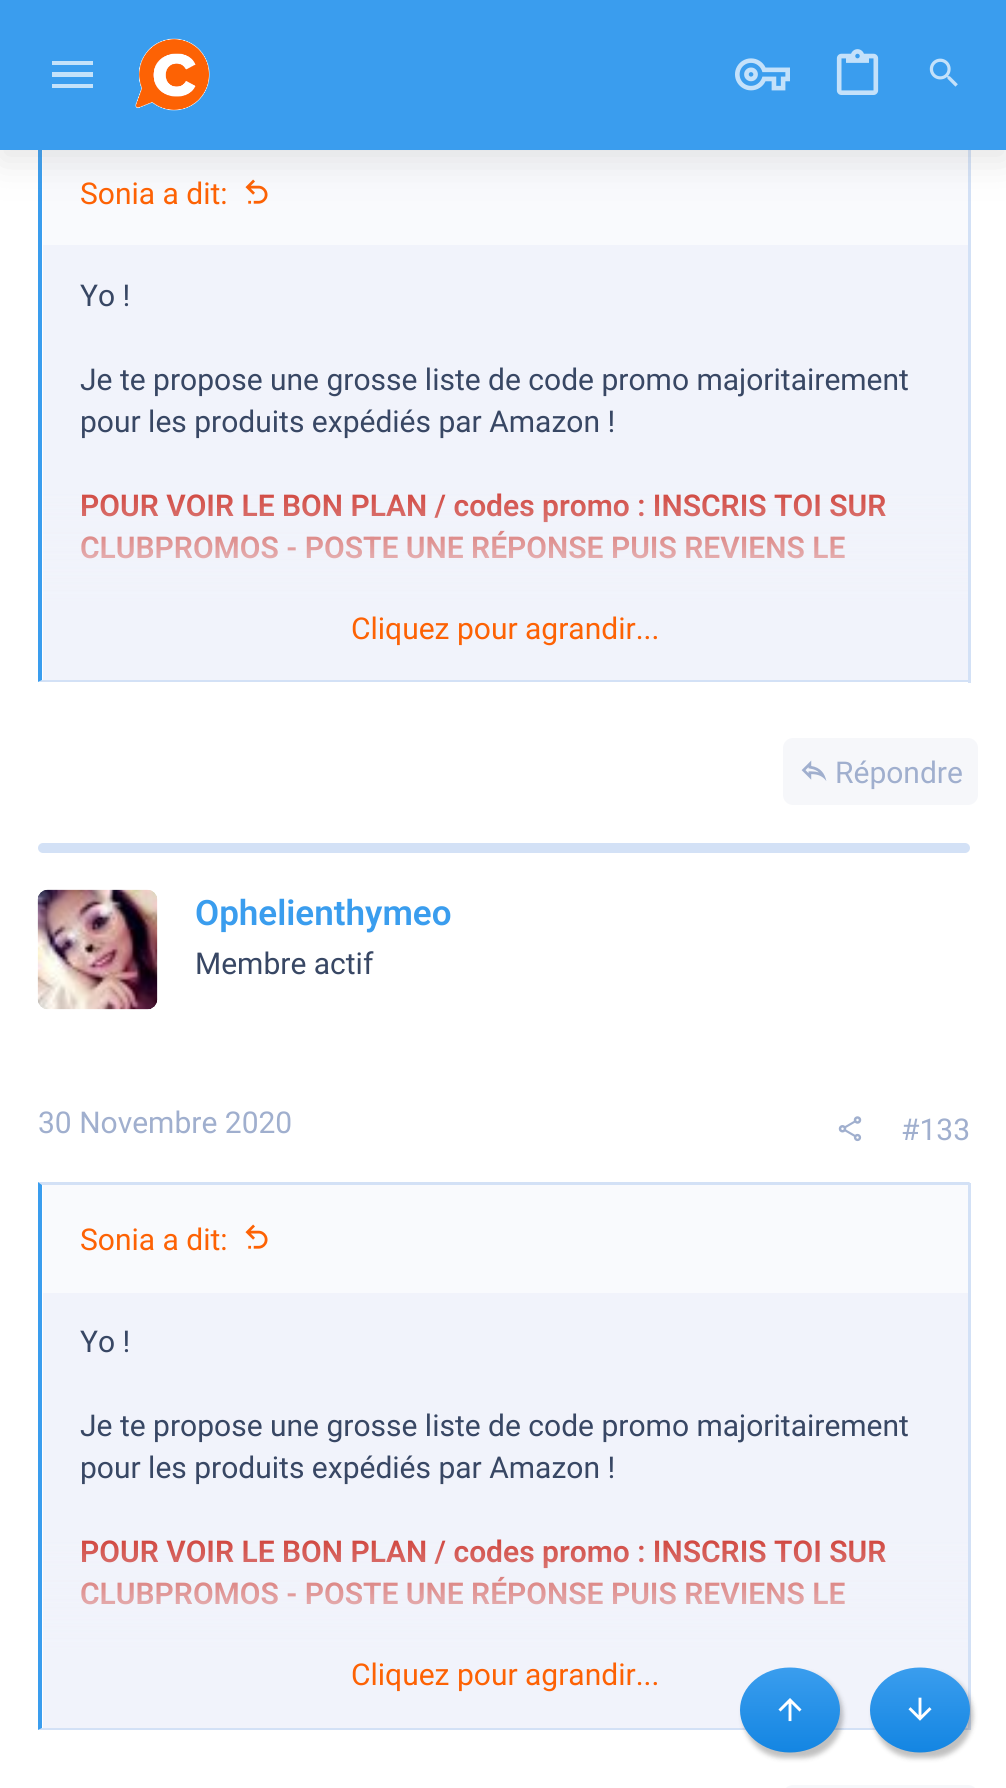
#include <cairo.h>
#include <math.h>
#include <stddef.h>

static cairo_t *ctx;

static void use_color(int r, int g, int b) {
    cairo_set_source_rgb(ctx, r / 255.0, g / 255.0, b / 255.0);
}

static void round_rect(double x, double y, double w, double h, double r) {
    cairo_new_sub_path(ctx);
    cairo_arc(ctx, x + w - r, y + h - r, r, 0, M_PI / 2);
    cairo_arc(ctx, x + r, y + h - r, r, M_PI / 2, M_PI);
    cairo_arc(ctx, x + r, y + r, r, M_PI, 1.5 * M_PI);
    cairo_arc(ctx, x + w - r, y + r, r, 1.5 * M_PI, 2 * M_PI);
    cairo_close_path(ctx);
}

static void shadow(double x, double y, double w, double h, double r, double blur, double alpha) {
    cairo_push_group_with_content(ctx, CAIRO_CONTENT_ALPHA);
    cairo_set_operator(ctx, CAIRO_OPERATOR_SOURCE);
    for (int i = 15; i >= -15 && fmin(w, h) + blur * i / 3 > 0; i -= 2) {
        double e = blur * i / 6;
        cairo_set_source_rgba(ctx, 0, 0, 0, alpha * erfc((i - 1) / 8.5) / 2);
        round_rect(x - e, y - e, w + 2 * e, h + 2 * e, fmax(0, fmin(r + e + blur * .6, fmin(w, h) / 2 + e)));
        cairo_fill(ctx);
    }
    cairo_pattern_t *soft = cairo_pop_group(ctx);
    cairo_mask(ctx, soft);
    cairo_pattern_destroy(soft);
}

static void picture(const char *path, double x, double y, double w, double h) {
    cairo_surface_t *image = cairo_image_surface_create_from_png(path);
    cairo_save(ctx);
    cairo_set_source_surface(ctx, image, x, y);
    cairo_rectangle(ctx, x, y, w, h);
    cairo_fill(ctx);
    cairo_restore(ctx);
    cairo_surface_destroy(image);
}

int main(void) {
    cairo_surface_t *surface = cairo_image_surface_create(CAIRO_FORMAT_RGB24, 1006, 1788);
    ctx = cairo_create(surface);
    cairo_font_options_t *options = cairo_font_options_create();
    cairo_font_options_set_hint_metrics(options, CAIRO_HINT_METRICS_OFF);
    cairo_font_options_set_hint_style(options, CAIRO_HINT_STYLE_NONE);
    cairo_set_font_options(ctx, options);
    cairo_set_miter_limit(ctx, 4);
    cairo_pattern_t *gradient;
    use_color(255, 255, 255);
    cairo_paint(ctx);
    use_color(211, 225, 246);
    cairo_rectangle(ctx, 968, 150, 3, 533);
    cairo_fill(ctx);
    cairo_new_path(ctx);
    cairo_move_to(ctx, 970, 682);
    cairo_line_to(ctx, 38, 682);
    cairo_line_to(ctx, 42, 680);
    cairo_line_to(ctx, 968, 680);
    cairo_close_path(ctx);
    cairo_fill(ctx);
    use_color(58, 157, 238);
    cairo_new_path(ctx);
    cairo_move_to(ctx, 38, 682);
    cairo_line_to(ctx, 38, 138);
    cairo_line_to(ctx, 42, 140);
    cairo_line_to(ctx, 42, 680);
    cairo_close_path(ctx);
    cairo_fill(ctx);
    use_color(249, 250, 253);
    cairo_rectangle(ctx, 43, 150, 925, 95);
    cairo_fill(ctx);
    picture("img5.png", 245, 179, 23, 25);
    use_color(119, 119, 119);
    shadow(0, 10, 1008, 150, 0, 19, 0.2);
    use_color(58, 157, 238);
    cairo_rectangle(ctx, 0, 0, 1006, 150);
    cairo_fill(ctx);
    use_color(196, 226, 250);
    cairo_new_path(ctx);
    cairo_move_to(ctx, 52, 61);
    cairo_line_to(ctx, 93, 61);
    cairo_line_to(ctx, 93, 65);
    cairo_line_to(ctx, 52, 65);
    cairo_close_path(ctx);
    cairo_move_to(ctx, 52, 72);
    cairo_line_to(ctx, 93, 72);
    cairo_line_to(ctx, 93, 77);
    cairo_line_to(ctx, 52, 77);
    cairo_close_path(ctx);
    cairo_move_to(ctx, 52, 84);
    cairo_line_to(ctx, 93, 84);
    cairo_line_to(ctx, 93, 88);
    cairo_line_to(ctx, 52, 88);
    cairo_close_path(ctx);
    cairo_fill(ctx);
    picture("img1.png", 135, 38, 75, 73);
    picture("img2.png", 735, 58, 55, 33);
    picture("img3.png", 836, 49, 43, 46);
    picture("img4.png", 929, 58, 29, 29);
    use_color(241, 243, 251);
    cairo_rectangle(ctx, 43, 245, 925, 359);
    cairo_fill(ctx);
    cairo_select_font_face(ctx, "Roboto", CAIRO_FONT_SLANT_NORMAL, CAIRO_FONT_WEIGHT_NORMAL);
    cairo_set_font_size(ctx, 30);
    use_color(253, 98, 4);
    cairo_move_to(ctx, 80, 204);
    cairo_show_text(ctx, "Sonia a dit:");
    use_color(56, 71, 100);
    cairo_move_to(ctx, 80, 306);
    cairo_show_text(ctx, "Yo !");
    cairo_move_to(ctx, 80, 390);
    cairo_show_text(ctx, "Je te propose une grosse liste de code promo majoritairement");
    cairo_move_to(ctx, 80, 432);
    cairo_show_text(ctx, "pour les produits expédiés par Amazon !");
    cairo_select_font_face(ctx, "Roboto SemiBold", CAIRO_FONT_SLANT_NORMAL, CAIRO_FONT_WEIGHT_NORMAL);
    use_color(209, 72, 65);
    cairo_move_to(ctx, 80, 516);
    cairo_show_text(ctx, "POUR VOIR LE BON PLAN / codes promo : INSCRIS TOI SUR");
    cairo_move_to(ctx, 80, 558);
    cairo_show_text(ctx, "CLUBPROMOS - POSTE UNE RÉPONSE PUIS REVIENS LE");
    gradient = cairo_pattern_create_linear(505, 492, 505, 680);
    cairo_pattern_add_color_stop_rgba(gradient, 0, 0.945, 0.953, 0.984, 0);
    cairo_pattern_add_color_stop_rgba(gradient, 0.6, 0.945, 0.953, 0.984, 1);
    cairo_set_source(ctx, gradient);
    cairo_pattern_destroy(gradient);
    cairo_rectangle(ctx, 43, 494, 925, 186);
    cairo_fill(ctx);
    cairo_select_font_face(ctx, "Roboto", CAIRO_FONT_SLANT_NORMAL, CAIRO_FONT_WEIGHT_NORMAL);
    use_color(253, 98, 4);
    cairo_move_to(ctx, 351, 639);
    cairo_show_text(ctx, "Cliquez pour agrandir...");
    use_color(246, 247, 250);
    round_rect(783, 738, 195, 67, 10);
    cairo_fill(ctx);
    picture("img6.png", 801, 760, 26, 21);
    use_color(160, 175, 206);
    cairo_move_to(ctx, 835, 783);
    cairo_show_text(ctx, "Répondre");
    use_color(211, 225, 246);
    round_rect(38, 843, 932, 10, 5);
    cairo_fill(ctx);
    picture("img7.png", 37, 889, 121, 121);
    cairo_select_font_face(ctx, "Roboto SemiBold", CAIRO_FONT_SLANT_NORMAL, CAIRO_FONT_WEIGHT_NORMAL);
    cairo_set_font_size(ctx, 35);
    use_color(58, 157, 238);
    cairo_move_to(ctx, 195, 925);
    cairo_show_text(ctx, "Ophelienthymeo");
    cairo_select_font_face(ctx, "Roboto", CAIRO_FONT_SLANT_NORMAL, CAIRO_FONT_WEIGHT_NORMAL);
    cairo_set_font_size(ctx, 30);
    use_color(56, 71, 100);
    cairo_move_to(ctx, 195, 974);
    cairo_show_text(ctx, "Membre actif");
    use_color(160, 175, 206);
    cairo_move_to(ctx, 38, 1133);
    cairo_show_text(ctx, "30 Novembre 2020");
    picture("img8.png", 838, 1116, 24, 26);
    cairo_move_to(ctx, 901, 1140);
    cairo_show_text(ctx, "#133");
    use_color(241, 243, 251);
    cairo_rectangle(ctx, 43, 1293, 925, 359);
    cairo_fill(ctx);
    use_color(211, 225, 246);
    cairo_new_path(ctx);
    cairo_move_to(ctx, 38, 1182);
    cairo_line_to(ctx, 970, 1182);
    cairo_line_to(ctx, 968, 1185);
    cairo_line_to(ctx, 42, 1185);
    cairo_close_path(ctx);
    cairo_fill(ctx);
    cairo_rectangle(ctx, 968, 1183, 3, 547);
    cairo_fill(ctx);
    cairo_new_path(ctx);
    cairo_move_to(ctx, 970, 1730);
    cairo_line_to(ctx, 38, 1730);
    cairo_line_to(ctx, 42, 1728);
    cairo_line_to(ctx, 968, 1728);
    cairo_close_path(ctx);
    cairo_fill(ctx);
    use_color(58, 157, 238);
    cairo_new_path(ctx);
    cairo_move_to(ctx, 38, 1730);
    cairo_line_to(ctx, 38, 1182);
    cairo_line_to(ctx, 42, 1185);
    cairo_line_to(ctx, 42, 1728);
    cairo_close_path(ctx);
    cairo_fill(ctx);
    use_color(249, 250, 253);
    cairo_rectangle(ctx, 43, 1185, 925, 108);
    cairo_fill(ctx);
    use_color(253, 98, 4);
    cairo_move_to(ctx, 80, 1250);
    cairo_show_text(ctx, "Sonia a dit:");
    picture("img5.png", 245, 1224, 23, 25);
    use_color(56, 71, 100);
    cairo_move_to(ctx, 80, 1352);
    cairo_show_text(ctx, "Yo !");
    cairo_move_to(ctx, 80, 1436);
    cairo_show_text(ctx, "Je te propose une grosse liste de code promo majoritairement");
    cairo_move_to(ctx, 80, 1478);
    cairo_show_text(ctx, "pour les produits expédiés par Amazon !");
    cairo_select_font_face(ctx, "Roboto SemiBold", CAIRO_FONT_SLANT_NORMAL, CAIRO_FONT_WEIGHT_NORMAL);
    use_color(209, 72, 65);
    cairo_move_to(ctx, 80, 1562);
    cairo_show_text(ctx, "POUR VOIR LE BON PLAN / codes promo : INSCRIS TOI SUR");
    cairo_move_to(ctx, 80, 1604);
    cairo_show_text(ctx, "CLUBPROMOS - POSTE UNE RÉPONSE PUIS REVIENS LE");
    gradient = cairo_pattern_create_linear(505, 1540, 505, 1728);
    cairo_pattern_add_color_stop_rgba(gradient, 0, 0.945, 0.953, 0.984, 0);
    cairo_pattern_add_color_stop_rgba(gradient, 0.6, 0.945, 0.953, 0.984, 1);
    cairo_set_source(ctx, gradient);
    cairo_pattern_destroy(gradient);
    cairo_rectangle(ctx, 43, 1542, 925, 186);
    cairo_fill(ctx);
    cairo_select_font_face(ctx, "Roboto", CAIRO_FONT_SLANT_NORMAL, CAIRO_FONT_WEIGHT_NORMAL);
    use_color(253, 98, 4);
    cairo_move_to(ctx, 351, 1685);
    cairo_show_text(ctx, "Cliquez pour agrandir...");
    use_color(246, 247, 250);
    round_rect(783, 1785, 195, 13, 10);
    cairo_fill(ctx);
    use_color(0, 0, 0);
    shadow(743, 1673, 100, 85, 42.5, 2.5, 0.25);
    gradient = cairo_pattern_create_linear(790, 1668, 790, 1753);
    cairo_pattern_add_color_stop_rgba(gradient, 0, 0.227, 0.616, 0.933, 1);
    cairo_pattern_add_color_stop_rgba(gradient, 1, 0.075, 0.522, 0.886, 1);
    cairo_set_source(ctx, gradient);
    cairo_pattern_destroy(gradient);
    cairo_new_path(ctx);
    cairo_move_to(ctx, 790, 1667.5);
    cairo_curve_to(ctx, 817.5, 1667.5, 840, 1686.5, 840, 1710);
    cairo_curve_to(ctx, 840, 1733.5, 817.5, 1752.5, 790, 1752.5);
    cairo_curve_to(ctx, 762.5, 1752.5, 740, 1733.5, 740, 1710);
    cairo_curve_to(ctx, 740, 1686.5, 762.5, 1667.5, 790, 1667.5);
    cairo_close_path(ctx);
    cairo_fill(ctx);
    picture("img9.png", 778, 1698, 24, 24);
    use_color(0, 0, 0);
    shadow(873, 1673, 100, 85, 42.5, 2.5, 0.25);
    gradient = cairo_pattern_create_linear(920, 1668, 920, 1753);
    cairo_pattern_add_color_stop_rgba(gradient, 0, 0.227, 0.616, 0.933, 1);
    cairo_pattern_add_color_stop_rgba(gradient, 1, 0.075, 0.522, 0.886, 1);
    cairo_set_source(ctx, gradient);
    cairo_pattern_destroy(gradient);
    cairo_new_path(ctx);
    cairo_move_to(ctx, 920, 1667.5);
    cairo_curve_to(ctx, 947.5, 1667.5, 970, 1686.5, 970, 1710);
    cairo_curve_to(ctx, 970, 1733.5, 947.5, 1752.5, 920, 1752.5);
    cairo_curve_to(ctx, 892.5, 1752.5, 870, 1733.5, 870, 1710);
    cairo_curve_to(ctx, 870, 1686.5, 892.5, 1667.5, 920, 1667.5);
    cairo_close_path(ctx);
    cairo_fill(ctx);
    picture("img10.png", 908, 1697, 24, 24);
    cairo_surface_write_to_png(surface, "result.png");
    cairo_font_options_destroy(options);
    cairo_destroy(ctx);
    cairo_surface_destroy(surface);
    return 0;
}
